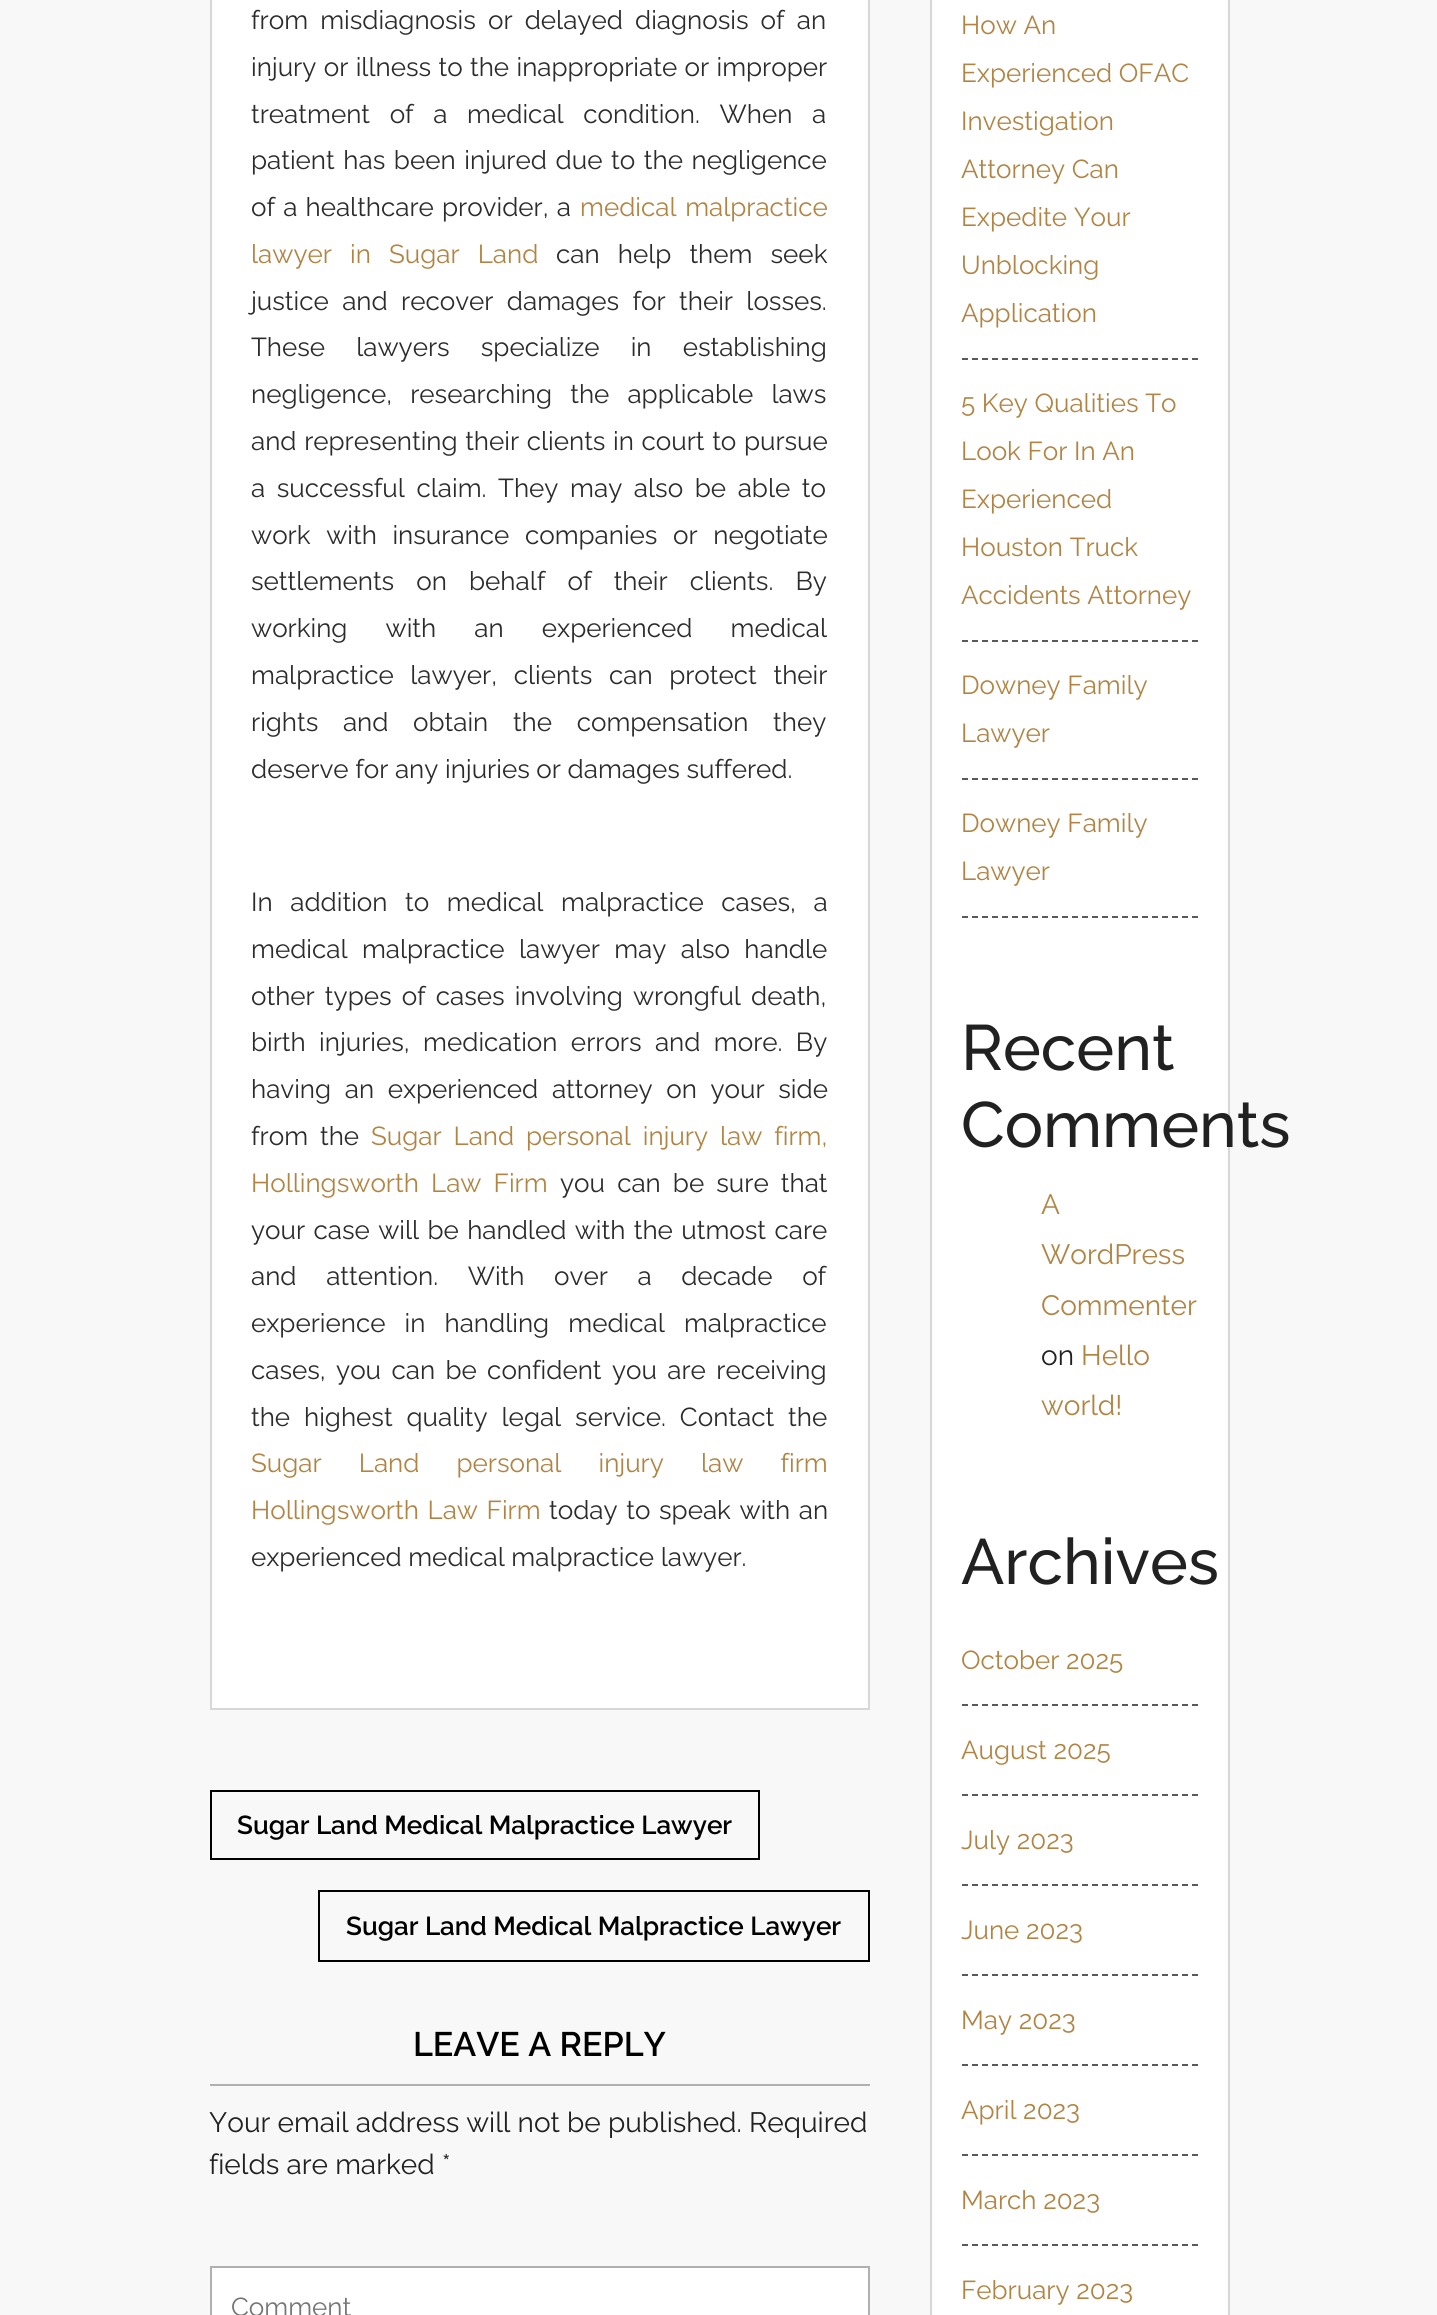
#include <cairo.h>
#include <math.h>
#include <stddef.h>

static cairo_t *ctx;

static void use_color(int r, int g, int b) {
    cairo_set_source_rgb(ctx, r / 255.0, g / 255.0, b / 255.0);
}

static void spaced_text(double x, double y, const char *s, double letter, double word) {
    cairo_move_to(ctx, x, y);
    while (*s) {
        char ch[5] = {0};
        int n = 0;
        do ch[n++] = *s++; while ((*s & 0xC0) == 0x80);
        cairo_show_text(ctx, ch);
        cairo_rel_move_to(ctx, letter + word * (*ch == ' '), 0);
    }
}

int main(void) {
    cairo_surface_t *surface = cairo_image_surface_create(CAIRO_FORMAT_RGB24, 1437, 2315);
    ctx = cairo_create(surface);
    cairo_font_options_t *options = cairo_font_options_create();
    cairo_font_options_set_hint_metrics(options, CAIRO_HINT_METRICS_OFF);
    cairo_font_options_set_hint_style(options, CAIRO_HINT_STYLE_NONE);
    cairo_set_font_options(ctx, options);
    cairo_set_miter_limit(ctx, 4);
    use_color(248, 248, 248);
    cairo_paint(ctx);
    use_color(255, 255, 255);
    cairo_rectangle(ctx, 211, -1, 658, 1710);
    cairo_fill_preserve(ctx);
    use_color(215, 215, 215);
    cairo_stroke(ctx);
    cairo_select_font_face(ctx, "Raleway", CAIRO_FONT_SLANT_NORMAL, CAIRO_FONT_WEIGHT_NORMAL);
    cairo_set_font_size(ctx, 26);
    use_color(44, 44, 44);
    spaced_text(251, 29, "from misdiagnosis or delayed diagnosis of an", 0, 5.5);
    spaced_text(251, 76, "injury or illness to the inappropriate or improper", 0, 0.75);
    spaced_text(251, 123, "treatment of a medical condition. When a", 0, 13);
    spaced_text(251, 169, "patient has been injured due to the negligence", 0, 2);
    spaced_text(251, 216, "of a healthcare provider, a", 0, 1.5);
    use_color(177, 132, 67);
    spaced_text(580, 216, "medical malpractice", 0, 2);
    spaced_text(251, 263, "lawyer in Sugar Land", 0, 11.5);
    use_color(44, 44, 44);
    spaced_text(556, 263, "can help them seek", 0, 11.5);
    spaced_text(251, 310, "justice and recover damages for their losses.", 0, 6.75);
    spaced_text(251, 356, "These lawyers specialize in establishing", 0, 24.5);
    spaced_text(251, 403, "negligence, researching the applicable laws", 0, 11.5);
    spaced_text(251, 450, "and representing their clients in court to pursue", 0, 1);
    spaced_text(251, 497, "a successful claim. They may also be able to", 0, 5);
    spaced_text(251, 544, "work with insurance companies or negotiate", 0, 9);
    spaced_text(251, 590, "settlements on behalf of their clients. By", 0, 15.5);
    spaced_text(251, 637, "working with an experienced medical", 0, 31.5);
    spaced_text(251, 684, "malpractice lawyer, clients can protect their", 0, 10);
    spaced_text(251, 731, "rights and obtain the compensation they", 0, 18);
    cairo_move_to(ctx, 251, 778);
    cairo_show_text(ctx, "deserve for any injuries or damages suffered.");
    spaced_text(251, 911, "In addition to medical malpractice cases, a", 0, 11);
    spaced_text(251, 958, "medical malpractice lawyer may also handle", 0, 7.75);
    spaced_text(251, 1005, "other types of cases involving wrongful death,", 0, 3.5);
    spaced_text(251, 1051, "birth injuries, medication errors and more. By", 0, 6.75);
    spaced_text(251, 1098, "having an experienced attorney on your side", 0, 7);
    spaced_text(251, 1145, "from the", 0, 5.25);
    use_color(177, 132, 67);
    spaced_text(371, 1145, "Sugar Land personal injury law firm,", 0, 5.25);
    spaced_text(251, 1192, "Hollingsworth Law Firm", 0, 5.5);
    use_color(44, 44, 44);
    spaced_text(560, 1192, "you can be sure that", 0, 5.5);
    spaced_text(251, 1239, "your case will be handled with the utmost care", 0, 1.75);
    spaced_text(251, 1285, "and attention. With over a decade of", 0, 23);
    spaced_text(251, 1332, "experience in handling medical malpractice", 0, 12.5);
    spaced_text(251, 1379, "cases, you can be confident you are receiving", 0, 3.75);
    spaced_text(251, 1426, "the highest quality legal service. Contact the", 0, 7.25);
    use_color(177, 132, 67);
    spaced_text(251, 1472, "Sugar Land personal injury law firm", 0, 30.5);
    spaced_text(251, 1519, "Hollingsworth Law Firm", 0, 2);
    use_color(44, 44, 44);
    spaced_text(549, 1519, "today to speak with an", 0, 2);
    cairo_move_to(ctx, 251, 1566);
    cairo_show_text(ctx, "experienced medical malpractice lawyer.");
    cairo_rectangle(ctx, 211, 1791, 548, 68);
    use_color(0, 0, 0);
    cairo_stroke(ctx);
    cairo_select_font_face(ctx, "Raleway SemiBold", CAIRO_FONT_SLANT_NORMAL, CAIRO_FONT_WEIGHT_NORMAL);
    cairo_move_to(ctx, 237, 1834);
    cairo_show_text(ctx, "Sugar Land Medical Malpractice Lawyer");
    cairo_rectangle(ctx, 319, 1891, 550, 70);
    cairo_stroke(ctx);
    cairo_move_to(ctx, 346, 1935);
    cairo_show_text(ctx, "Sugar Land Medical Malpractice Lawyer");
    use_color(176, 176, 176);
    cairo_rectangle(ctx, 210, 2084, 660, 2);
    cairo_fill(ctx);
    cairo_set_font_size(ctx, 34);
    use_color(0, 0, 0);
    cairo_move_to(ctx, 413, 2056);
    cairo_show_text(ctx, "LEAVE A REPLY");
    cairo_select_font_face(ctx, "Raleway", CAIRO_FONT_SLANT_NORMAL, CAIRO_FONT_WEIGHT_NORMAL);
    cairo_set_font_size(ctx, 28);
    use_color(33, 33, 33);
    cairo_move_to(ctx, 209, 2132);
    cairo_show_text(ctx, "Your email address will not be published. Required");
    cairo_move_to(ctx, 209, 2174);
    cairo_show_text(ctx, "fields are marked *");
    use_color(255, 255, 255);
    cairo_rectangle(ctx, 211, 2267, 658, 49);
    cairo_fill_preserve(ctx);
    use_color(176, 176, 176);
    cairo_stroke(ctx);
    cairo_set_font_size(ctx, 26);
    use_color(117, 117, 117);
    cairo_move_to(ctx, 231, 2316);
    cairo_show_text(ctx, "Comment");
    use_color(255, 255, 255);
    cairo_rectangle(ctx, 931, -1, 298, 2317);
    cairo_fill_preserve(ctx);
    use_color(215, 215, 215);
    cairo_stroke(ctx);
    cairo_new_path(ctx);
    cairo_move_to(ctx, 962, 359);
    cairo_line_to(ctx, 1198, 359);
    use_color(89, 89, 89);
    cairo_set_dash(ctx, (double[]){6, 4}, 2, 0);
    cairo_stroke(ctx);
    use_color(177, 132, 67);
    cairo_move_to(ctx, 961, 34);
    cairo_show_text(ctx, "How An");
    cairo_move_to(ctx, 961, 82);
    cairo_show_text(ctx, "Experienced OFAC");
    cairo_move_to(ctx, 961, 130);
    cairo_show_text(ctx, "Investigation");
    cairo_move_to(ctx, 961, 178);
    cairo_show_text(ctx, "Attorney Can");
    cairo_move_to(ctx, 961, 226);
    cairo_show_text(ctx, "Expedite Your");
    cairo_move_to(ctx, 961, 274);
    cairo_show_text(ctx, "Unblocking");
    cairo_move_to(ctx, 961, 322);
    cairo_show_text(ctx, "Application");
    cairo_new_path(ctx);
    cairo_move_to(ctx, 962, 641);
    cairo_line_to(ctx, 1198, 641);
    use_color(89, 89, 89);
    cairo_stroke(ctx);
    use_color(177, 132, 67);
    cairo_move_to(ctx, 961, 412);
    cairo_show_text(ctx, "5 Key Qualities To");
    cairo_move_to(ctx, 961, 460);
    cairo_show_text(ctx, "Look For In An");
    cairo_move_to(ctx, 961, 508);
    cairo_show_text(ctx, "Experienced");
    cairo_move_to(ctx, 961, 556);
    cairo_show_text(ctx, "Houston Truck");
    cairo_move_to(ctx, 961, 604);
    cairo_show_text(ctx, "Accidents Attorney");
    cairo_new_path(ctx);
    cairo_move_to(ctx, 962, 779);
    cairo_line_to(ctx, 1198, 779);
    use_color(89, 89, 89);
    cairo_stroke(ctx);
    use_color(177, 132, 67);
    cairo_move_to(ctx, 961, 694);
    cairo_show_text(ctx, "Downey Family");
    cairo_move_to(ctx, 961, 742);
    cairo_show_text(ctx, "Lawyer");
    cairo_new_path(ctx);
    cairo_move_to(ctx, 962, 917);
    cairo_line_to(ctx, 1198, 917);
    use_color(89, 89, 89);
    cairo_stroke(ctx);
    use_color(177, 132, 67);
    cairo_move_to(ctx, 961, 832);
    cairo_show_text(ctx, "Downey Family");
    cairo_move_to(ctx, 961, 880);
    cairo_show_text(ctx, "Lawyer");
    cairo_select_font_face(ctx, "Raleway Medium", CAIRO_FONT_SLANT_NORMAL, CAIRO_FONT_WEIGHT_NORMAL);
    cairo_set_font_size(ctx, 64);
    use_color(33, 33, 33);
    cairo_move_to(ctx, 961, 1070);
    cairo_show_text(ctx, "Recent");
    cairo_move_to(ctx, 961, 1147);
    cairo_show_text(ctx, "Comments");
    cairo_select_font_face(ctx, "Raleway", CAIRO_FONT_SLANT_NORMAL, CAIRO_FONT_WEIGHT_NORMAL);
    cairo_set_font_size(ctx, 28);
    use_color(177, 132, 67);
    cairo_move_to(ctx, 1041, 1214);
    cairo_show_text(ctx, "A");
    cairo_move_to(ctx, 1041, 1264);
    cairo_show_text(ctx, "WordPress");
    cairo_move_to(ctx, 1041, 1315);
    cairo_show_text(ctx, "Commenter");
    use_color(33, 33, 33);
    cairo_move_to(ctx, 1041, 1365);
    cairo_show_text(ctx, "on");
    use_color(177, 132, 67);
    cairo_move_to(ctx, 1081, 1365);
    cairo_show_text(ctx, "Hello");
    cairo_move_to(ctx, 1041, 1415);
    cairo_show_text(ctx, "world!");
    cairo_select_font_face(ctx, "Raleway Medium", CAIRO_FONT_SLANT_NORMAL, CAIRO_FONT_WEIGHT_NORMAL);
    cairo_set_font_size(ctx, 64);
    use_color(33, 33, 33);
    cairo_move_to(ctx, 961, 1584);
    cairo_show_text(ctx, "Archives");
    cairo_new_path(ctx);
    cairo_move_to(ctx, 962, 1705);
    cairo_line_to(ctx, 1198, 1705);
    use_color(89, 89, 89);
    cairo_stroke(ctx);
    cairo_select_font_face(ctx, "Raleway", CAIRO_FONT_SLANT_NORMAL, CAIRO_FONT_WEIGHT_NORMAL);
    cairo_set_font_size(ctx, 26);
    use_color(177, 132, 67);
    cairo_move_to(ctx, 961, 1669);
    cairo_show_text(ctx, "October 2025");
    cairo_new_path(ctx);
    cairo_move_to(ctx, 962, 1795);
    cairo_line_to(ctx, 1198, 1795);
    use_color(89, 89, 89);
    cairo_stroke(ctx);
    use_color(177, 132, 67);
    cairo_move_to(ctx, 961, 1759);
    cairo_show_text(ctx, "August 2025");
    cairo_new_path(ctx);
    cairo_move_to(ctx, 962, 1885);
    cairo_line_to(ctx, 1198, 1885);
    use_color(89, 89, 89);
    cairo_stroke(ctx);
    use_color(177, 132, 67);
    cairo_move_to(ctx, 961, 1849);
    cairo_show_text(ctx, "July 2023");
    cairo_new_path(ctx);
    cairo_move_to(ctx, 962, 1975);
    cairo_line_to(ctx, 1198, 1975);
    use_color(89, 89, 89);
    cairo_stroke(ctx);
    use_color(177, 132, 67);
    cairo_move_to(ctx, 961, 1939);
    cairo_show_text(ctx, "June 2023");
    cairo_new_path(ctx);
    cairo_move_to(ctx, 962, 2065);
    cairo_line_to(ctx, 1198, 2065);
    use_color(89, 89, 89);
    cairo_stroke(ctx);
    use_color(177, 132, 67);
    cairo_move_to(ctx, 961, 2029);
    cairo_show_text(ctx, "May 2023");
    cairo_new_path(ctx);
    cairo_move_to(ctx, 962, 2155);
    cairo_line_to(ctx, 1198, 2155);
    use_color(89, 89, 89);
    cairo_stroke(ctx);
    use_color(177, 132, 67);
    cairo_move_to(ctx, 961, 2119);
    cairo_show_text(ctx, "April 2023");
    cairo_new_path(ctx);
    cairo_move_to(ctx, 962, 2245);
    cairo_line_to(ctx, 1198, 2245);
    use_color(89, 89, 89);
    cairo_stroke(ctx);
    use_color(177, 132, 67);
    cairo_move_to(ctx, 961, 2209);
    cairo_show_text(ctx, "March 2023");
    cairo_move_to(ctx, 961, 2299);
    cairo_show_text(ctx, "February 2023");
    cairo_surface_write_to_png(surface, "result.png");
    cairo_font_options_destroy(options);
    cairo_destroy(ctx);
    cairo_surface_destroy(surface);
    return 0;
}
